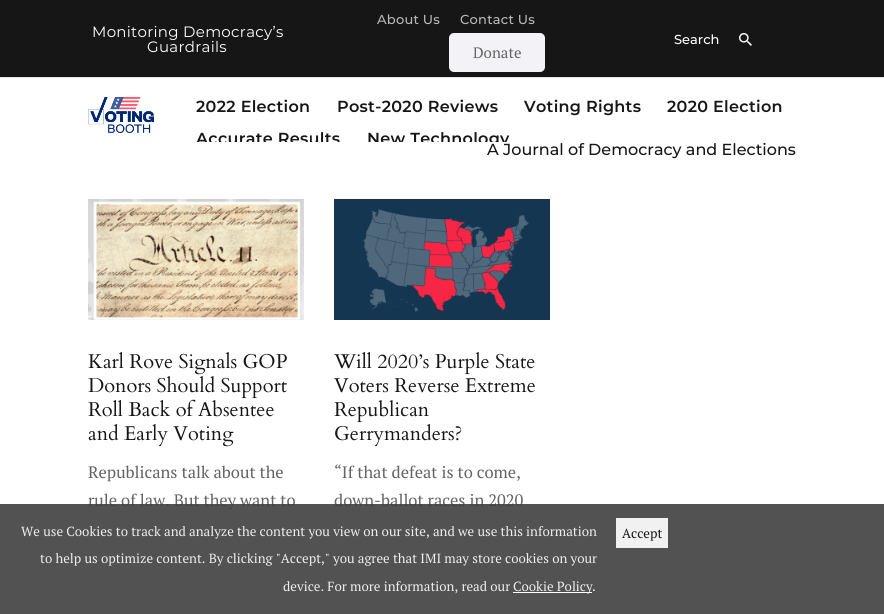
#include <cairo.h>
#include <math.h>
#include <stddef.h>

static cairo_t *ctx;

static void use_color(int r, int g, int b) {
    cairo_set_source_rgb(ctx, r / 255.0, g / 255.0, b / 255.0);
}

static void spaced_text(double x, double y, const char *s, double letter, double word) {
    cairo_move_to(ctx, x, y);
    while (*s) {
        char ch[5] = {0};
        int n = 0;
        do ch[n++] = *s++; while ((*s & 0xC0) == 0x80);
        cairo_show_text(ctx, ch);
        cairo_rel_move_to(ctx, letter + word * (*ch == ' '), 0);
    }
}

static void round_rect(double x, double y, double w, double h, double r) {
    cairo_new_sub_path(ctx);
    cairo_arc(ctx, x + w - r, y + h - r, r, 0, M_PI / 2);
    cairo_arc(ctx, x + r, y + h - r, r, M_PI / 2, M_PI);
    cairo_arc(ctx, x + r, y + r, r, M_PI, 1.5 * M_PI);
    cairo_arc(ctx, x + w - r, y + r, r, 1.5 * M_PI, 2 * M_PI);
    cairo_close_path(ctx);
}

static void picture(const char *path, double x, double y, double w, double h) {
    cairo_surface_t *image = cairo_image_surface_create_from_png(path);
    cairo_save(ctx);
    cairo_set_source_surface(ctx, image, x, y);
    cairo_rectangle(ctx, x, y, w, h);
    cairo_fill(ctx);
    cairo_restore(ctx);
    cairo_surface_destroy(image);
}

int main(void) {
    cairo_surface_t *surface = cairo_image_surface_create(CAIRO_FORMAT_RGB24, 884, 614);
    ctx = cairo_create(surface);
    cairo_font_options_t *options = cairo_font_options_create();
    cairo_font_options_set_hint_metrics(options, CAIRO_HINT_METRICS_OFF);
    cairo_font_options_set_hint_style(options, CAIRO_HINT_STYLE_NONE);
    cairo_set_font_options(ctx, options);
    cairo_set_miter_limit(ctx, 4);
    use_color(255, 255, 255);
    cairo_paint(ctx);
    use_color(22, 22, 22);
    cairo_rectangle(ctx, 0, 0, 884, 77);
    cairo_fill(ctx);
    cairo_select_font_face(ctx, "Montserrat", CAIRO_FONT_SLANT_NORMAL, CAIRO_FONT_WEIGHT_NORMAL);
    cairo_set_font_size(ctx, 15);
    use_color(255, 255, 255);
    spaced_text(92, 37, "Monitoring Democracy’s", 0.3, 0);
    spaced_text(147, 52, "Guardrails", 0.3, 0);
    cairo_select_font_face(ctx, "Montserrat Medium", CAIRO_FONT_SLANT_NORMAL, CAIRO_FONT_WEIGHT_NORMAL);
    cairo_set_font_size(ctx, 13);
    use_color(185, 185, 185);
    spaced_text(377, 24, "About Us", 0.25, 0);
    spaced_text(460, 24, "Contact Us", 0.25, 0);
    use_color(242, 242, 247);
    round_rect(449, 33, 96, 39, 5);
    cairo_fill(ctx);
    cairo_select_font_face(ctx, "PT Serif", CAIRO_FONT_SLANT_NORMAL, CAIRO_FONT_WEIGHT_NORMAL);
    cairo_set_font_size(ctx, 15);
    use_color(100, 100, 100);
    cairo_move_to(ctx, 473, 58);
    cairo_show_text(ctx, "Donate");
    cairo_select_font_face(ctx, "Montserrat Medium", CAIRO_FONT_SLANT_NORMAL, CAIRO_FONT_WEIGHT_NORMAL);
    cairo_set_font_size(ctx, 13);
    use_color(255, 255, 255);
    cairo_move_to(ctx, 674, 44);
    cairo_show_text(ctx, "Search");
    picture("img1.png", 739, 33, 13, 13);
    use_color(229, 229, 229);
    cairo_rectangle(ctx, 0, 77, 884, 1);
    cairo_fill(ctx);
    picture("img2.png", 88, 97, 66, 36);
    cairo_select_font_face(ctx, "Montserrat SemiBold", CAIRO_FONT_SLANT_NORMAL, CAIRO_FONT_WEIGHT_NORMAL);
    cairo_set_font_size(ctx, 16);
    use_color(22, 22, 22);
    spaced_text(196, 112, "2022 Election", 0.3, 0);
    spaced_text(337, 112, "Post-2020 Reviews", 0.3, 0);
    spaced_text(524, 112, "Voting Rights", 0.3, 0);
    spaced_text(667, 112, "2020 Election", 0.3, 0);
    cairo_save(ctx);
    cairo_rectangle(ctx, 0, 78, 884, 64);
    cairo_clip(ctx);
    spaced_text(196, 144, "Accurate Results", 0.3, 0);
    spaced_text(367, 144, "New Technology", 0.3, 0);
    cairo_restore(ctx);
    cairo_select_font_face(ctx, "Montserrat Medium", CAIRO_FONT_SLANT_NORMAL, CAIRO_FONT_WEIGHT_NORMAL);
    cairo_move_to(ctx, 487, 155);
    cairo_show_text(ctx, "A Journal of Democracy and Elections");
    picture("img3.png", 88, 199, 216, 121);
    cairo_select_font_face(ctx, "Cardo", CAIRO_FONT_SLANT_NORMAL, CAIRO_FONT_WEIGHT_NORMAL);
    cairo_set_font_size(ctx, 20);
    cairo_move_to(ctx, 88, 368);
    cairo_show_text(ctx, "Karl Rove Signals GOP");
    cairo_move_to(ctx, 88, 392);
    cairo_show_text(ctx, "Donors Should Support");
    cairo_move_to(ctx, 88, 416);
    cairo_show_text(ctx, "Roll Back of Absentee");
    cairo_move_to(ctx, 88, 440);
    cairo_show_text(ctx, "and Early Voting");
    cairo_select_font_face(ctx, "PT Serif", CAIRO_FONT_SLANT_NORMAL, CAIRO_FONT_WEIGHT_NORMAL);
    cairo_set_font_size(ctx, 16.5);
    use_color(100, 100, 100);
    cairo_move_to(ctx, 88, 478);
    cairo_show_text(ctx, "Republicans talk about the");
    cairo_move_to(ctx, 88, 506);
    cairo_show_text(ctx, "rule of law. But they want to");
    picture("img4.png", 334, 199, 216, 121);
    cairo_select_font_face(ctx, "Cardo", CAIRO_FONT_SLANT_NORMAL, CAIRO_FONT_WEIGHT_NORMAL);
    cairo_set_font_size(ctx, 20);
    use_color(22, 22, 22);
    cairo_move_to(ctx, 334, 368);
    cairo_show_text(ctx, "Will 2020’s Purple State");
    cairo_move_to(ctx, 334, 392);
    cairo_show_text(ctx, "Voters Reverse Extreme");
    cairo_move_to(ctx, 334, 416);
    cairo_show_text(ctx, "Republican");
    cairo_move_to(ctx, 334, 440);
    cairo_show_text(ctx, "Gerrymanders?");
    cairo_select_font_face(ctx, "PT Serif", CAIRO_FONT_SLANT_NORMAL, CAIRO_FONT_WEIGHT_NORMAL);
    cairo_set_font_size(ctx, 16.5);
    use_color(100, 100, 100);
    cairo_move_to(ctx, 334, 478);
    cairo_show_text(ctx, "“If that defeat is to come,");
    cairo_move_to(ctx, 334, 506);
    cairo_show_text(ctx, "down-ballot races in 2020");
    cairo_set_source_rgba(ctx, 0.251, 0.251, 0.251, 0.9);
    cairo_rectangle(ctx, 0, 504, 884, 110);
    cairo_fill(ctx);
    cairo_set_font_size(ctx, 13.2);
    use_color(238, 238, 238);
    cairo_move_to(ctx, 21, 536);
    cairo_show_text(ctx, "We use Cookies to track and analyze the content you view on our site, and we use this information");
    cairo_move_to(ctx, 40, 563);
    cairo_show_text(ctx, "to help us optimize content. By clicking \"Accept,\" you agree that IMI may store cookies on your");
    cairo_move_to(ctx, 283, 591);
    cairo_show_text(ctx, "device. For more information, read our");
    use_color(255, 255, 255);
    cairo_rectangle(ctx, 513, 592, 79, 1);
    cairo_fill(ctx);
    use_color(238, 238, 238);
    cairo_move_to(ctx, 513, 591);
    cairo_show_text(ctx, "Cookie Policy");
    use_color(255, 255, 255);
    cairo_move_to(ctx, 592, 591);
    cairo_show_text(ctx, ".");
    use_color(241, 241, 241);
    cairo_rectangle(ctx, 616, 518, 52, 30);
    cairo_fill(ctx);
    use_color(22, 22, 22);
    cairo_move_to(ctx, 622, 538);
    cairo_show_text(ctx, "Accept");
    cairo_surface_write_to_png(surface, "result.png");
    cairo_font_options_destroy(options);
    cairo_destroy(ctx);
    cairo_surface_destroy(surface);
    return 0;
}
